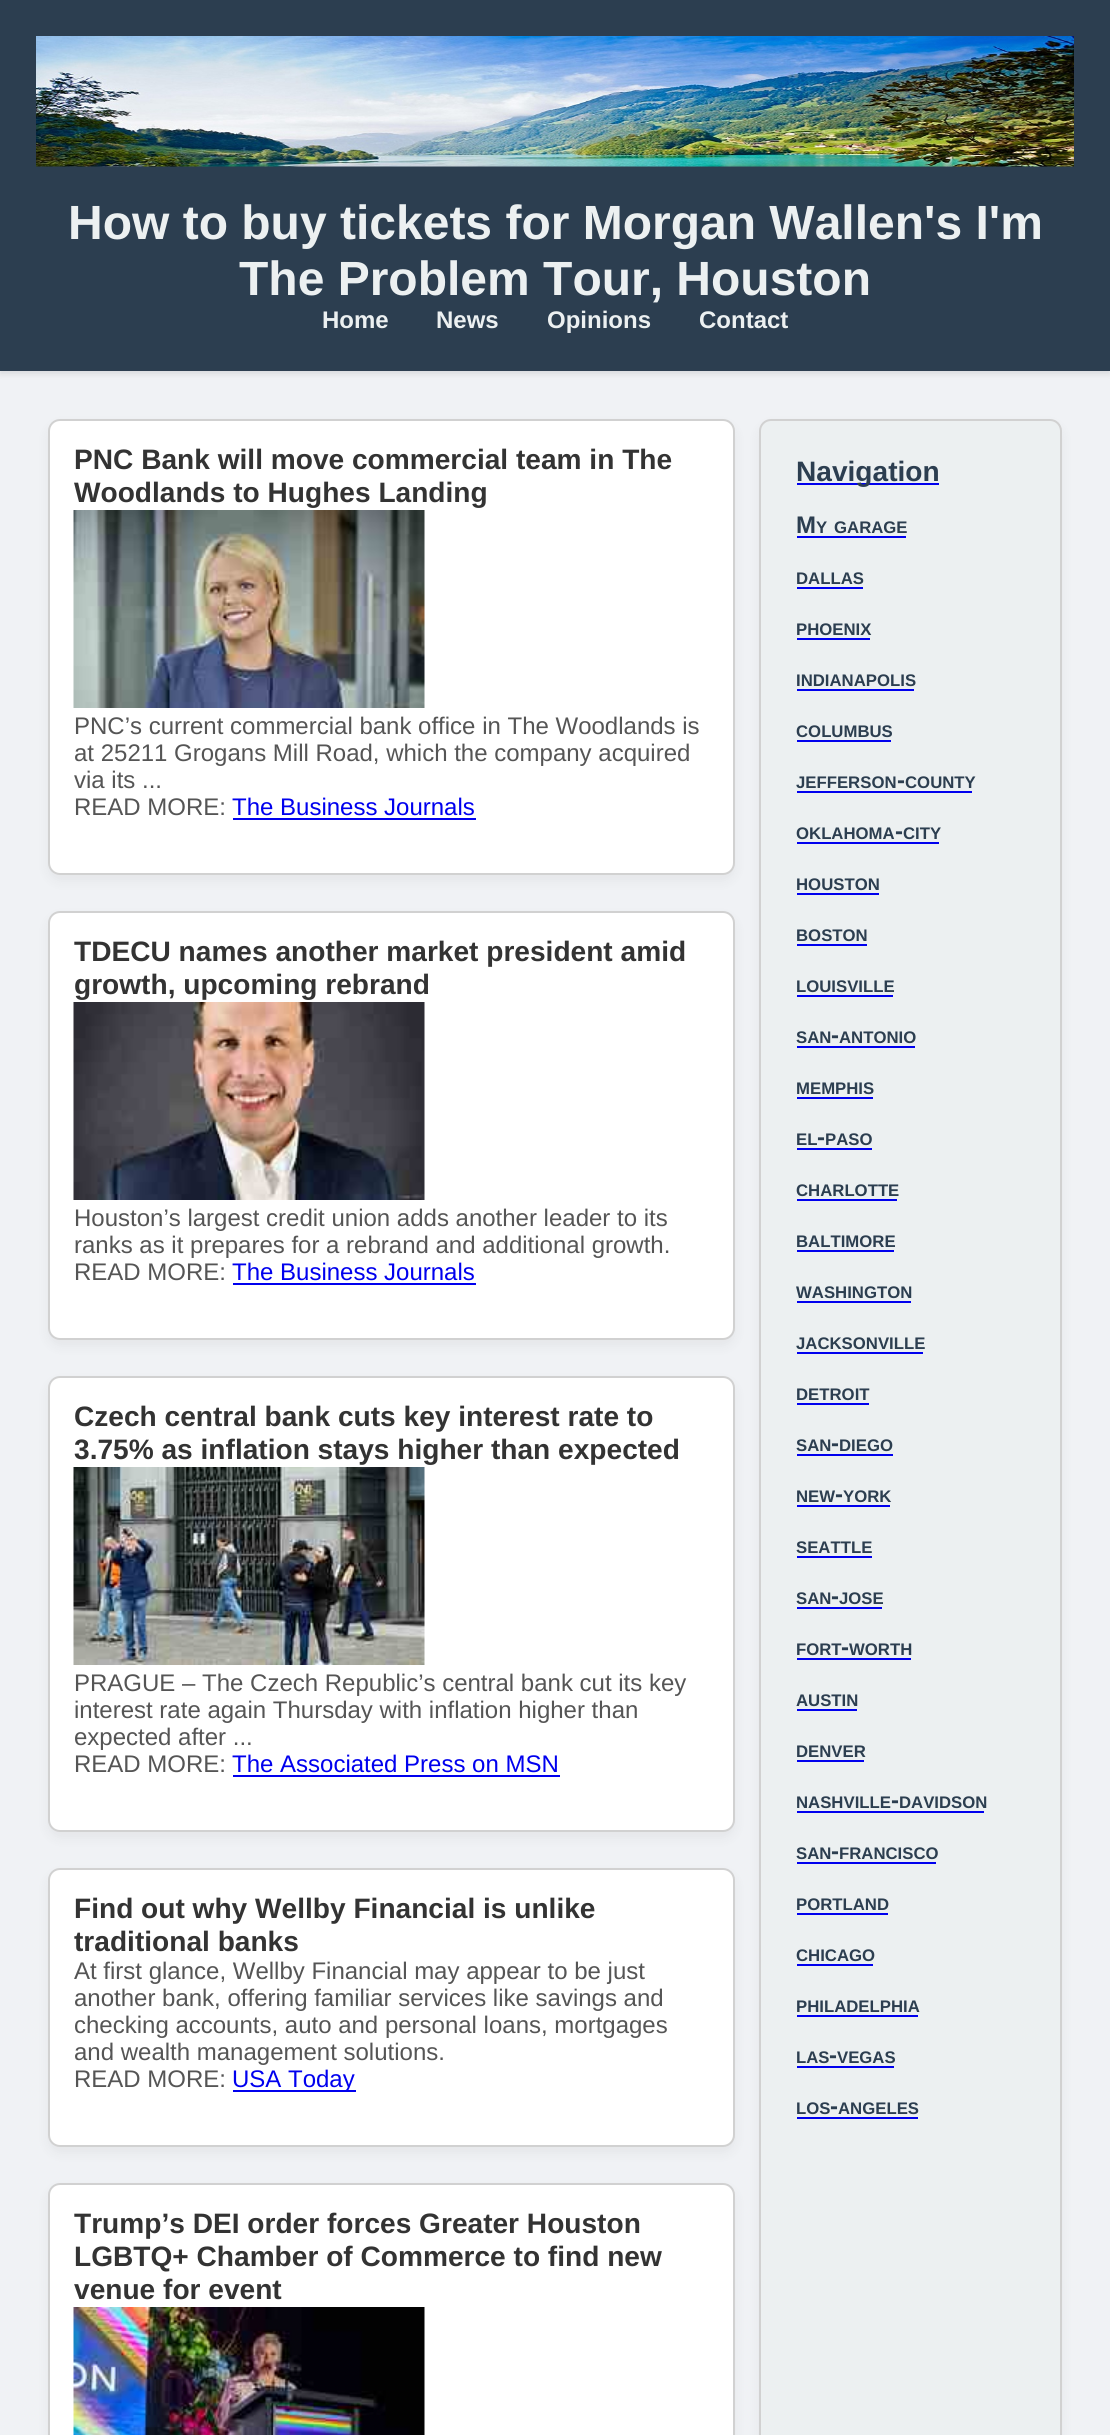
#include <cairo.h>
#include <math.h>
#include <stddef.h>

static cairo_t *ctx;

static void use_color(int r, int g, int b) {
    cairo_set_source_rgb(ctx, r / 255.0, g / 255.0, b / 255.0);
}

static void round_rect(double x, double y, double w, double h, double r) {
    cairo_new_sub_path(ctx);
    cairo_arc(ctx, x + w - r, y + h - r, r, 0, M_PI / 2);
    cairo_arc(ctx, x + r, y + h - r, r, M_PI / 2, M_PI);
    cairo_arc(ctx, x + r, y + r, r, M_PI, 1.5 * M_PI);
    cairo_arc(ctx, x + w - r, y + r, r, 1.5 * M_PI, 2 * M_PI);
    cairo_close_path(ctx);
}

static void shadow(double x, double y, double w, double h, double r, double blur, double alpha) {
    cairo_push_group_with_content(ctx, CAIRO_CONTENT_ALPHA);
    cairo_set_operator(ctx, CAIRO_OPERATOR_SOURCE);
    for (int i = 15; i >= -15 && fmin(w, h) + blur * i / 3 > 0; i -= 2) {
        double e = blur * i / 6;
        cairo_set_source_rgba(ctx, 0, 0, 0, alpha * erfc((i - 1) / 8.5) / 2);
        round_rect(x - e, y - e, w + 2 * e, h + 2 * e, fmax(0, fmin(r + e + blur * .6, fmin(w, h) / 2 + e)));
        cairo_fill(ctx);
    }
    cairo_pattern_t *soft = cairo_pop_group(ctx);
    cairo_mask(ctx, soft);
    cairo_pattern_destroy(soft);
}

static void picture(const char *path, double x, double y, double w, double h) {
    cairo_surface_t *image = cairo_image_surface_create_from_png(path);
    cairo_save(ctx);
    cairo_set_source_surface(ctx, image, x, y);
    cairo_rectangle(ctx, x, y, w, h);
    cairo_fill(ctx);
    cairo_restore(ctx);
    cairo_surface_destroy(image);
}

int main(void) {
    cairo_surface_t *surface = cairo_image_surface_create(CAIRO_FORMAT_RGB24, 1110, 2435);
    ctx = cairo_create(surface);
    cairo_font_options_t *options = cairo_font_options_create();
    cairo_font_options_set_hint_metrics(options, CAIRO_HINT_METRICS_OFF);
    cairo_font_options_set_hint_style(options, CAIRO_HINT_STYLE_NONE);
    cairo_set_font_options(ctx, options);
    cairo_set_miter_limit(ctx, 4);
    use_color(240, 242, 245);
    cairo_paint(ctx);
    use_color(0, 0, 0);
    shadow(0, 3, 1110, 371, 0, 3, 0.1);
    use_color(44, 62, 80);
    cairo_rectangle(ctx, 0, 0, 1110, 371);
    cairo_fill(ctx);
    picture("img1.png", 36, 36, 1038, 131);
    cairo_select_font_face(ctx, "Liberation Sans", CAIRO_FONT_SLANT_NORMAL, CAIRO_FONT_WEIGHT_BOLD);
    cairo_set_font_size(ctx, 48);
    use_color(236, 240, 241);
    cairo_move_to(ctx, 68, 239);
    cairo_show_text(ctx, "How to buy tickets for Morgan Wallen's I'm");
    cairo_move_to(ctx, 239, 295);
    cairo_show_text(ctx, "The Problem Tour, Houston");
    cairo_set_font_size(ctx, 24);
    cairo_move_to(ctx, 322, 328);
    cairo_show_text(ctx, "Home");
    cairo_move_to(ctx, 436, 328);
    cairo_show_text(ctx, "News");
    cairo_move_to(ctx, 547, 328);
    cairo_show_text(ctx, "Opinions");
    cairo_move_to(ctx, 699, 328);
    cairo_show_text(ctx, "Contact");
    use_color(0, 0, 0);
    shadow(48, 425, 687, 456, 12, 6, 0.05);
    use_color(255, 255, 255);
    round_rect(49, 420, 685, 454, 11);
    cairo_fill_preserve(ctx);
    use_color(209, 209, 209);
    cairo_stroke(ctx);
    cairo_set_font_size(ctx, 28.1);
    use_color(51, 51, 51);
    cairo_move_to(ctx, 74, 469);
    cairo_show_text(ctx, "PNC Bank will move commercial team in The");
    cairo_move_to(ctx, 74, 502);
    cairo_show_text(ctx, "Woodlands to Hughes Landing");
    picture("img2.png", 73, 510, 352, 198);
    cairo_select_font_face(ctx, "Liberation Sans", CAIRO_FONT_SLANT_NORMAL, CAIRO_FONT_WEIGHT_NORMAL);
    cairo_set_font_size(ctx, 24);
    use_color(85, 85, 85);
    cairo_move_to(ctx, 74, 734);
    cairo_show_text(ctx, "PNC’s current commercial bank office in The Woodlands is");
    cairo_move_to(ctx, 74, 761);
    cairo_show_text(ctx, "at 25211 Grogans Mill Road, which the company acquired");
    cairo_move_to(ctx, 74, 788);
    cairo_show_text(ctx, "via its ...");
    cairo_move_to(ctx, 74, 815);
    cairo_show_text(ctx, "READ MORE:");
    use_color(0, 0, 238);
    cairo_move_to(ctx, 232, 815);
    cairo_show_text(ctx, "The Business Journals");
    cairo_rectangle(ctx, 233, 818, 243, 2);
    cairo_fill(ctx);
    use_color(0, 0, 0);
    shadow(48, 917, 687, 429, 12, 6, 0.05);
    use_color(255, 255, 255);
    round_rect(49, 912, 685, 427, 11);
    cairo_fill_preserve(ctx);
    use_color(209, 209, 209);
    cairo_stroke(ctx);
    cairo_select_font_face(ctx, "Liberation Sans", CAIRO_FONT_SLANT_NORMAL, CAIRO_FONT_WEIGHT_BOLD);
    cairo_set_font_size(ctx, 28.1);
    use_color(51, 51, 51);
    cairo_move_to(ctx, 74, 961);
    cairo_show_text(ctx, "TDECU names another market president amid");
    cairo_move_to(ctx, 74, 994);
    cairo_show_text(ctx, "growth, upcoming rebrand");
    picture("img3.png", 73, 1002, 352, 198);
    cairo_select_font_face(ctx, "Liberation Sans", CAIRO_FONT_SLANT_NORMAL, CAIRO_FONT_WEIGHT_NORMAL);
    cairo_set_font_size(ctx, 24);
    use_color(85, 85, 85);
    cairo_move_to(ctx, 74, 1226);
    cairo_show_text(ctx, "Houston’s largest credit union adds another leader to its");
    cairo_move_to(ctx, 74, 1253);
    cairo_show_text(ctx, "ranks as it prepares for a rebrand and additional growth.");
    cairo_move_to(ctx, 74, 1280);
    cairo_show_text(ctx, "READ MORE:");
    use_color(0, 0, 238);
    cairo_move_to(ctx, 232, 1280);
    cairo_show_text(ctx, "The Business Journals");
    cairo_rectangle(ctx, 233, 1283, 243, 2);
    cairo_fill(ctx);
    use_color(0, 0, 0);
    shadow(48, 1382, 687, 456, 12, 6, 0.05);
    use_color(255, 255, 255);
    round_rect(49, 1377, 685, 454, 11);
    cairo_fill_preserve(ctx);
    use_color(209, 209, 209);
    cairo_stroke(ctx);
    cairo_select_font_face(ctx, "Liberation Sans", CAIRO_FONT_SLANT_NORMAL, CAIRO_FONT_WEIGHT_BOLD);
    cairo_set_font_size(ctx, 28.1);
    use_color(51, 51, 51);
    cairo_move_to(ctx, 74, 1426);
    cairo_show_text(ctx, "Czech central bank cuts key interest rate to");
    cairo_move_to(ctx, 74, 1459);
    cairo_show_text(ctx, "3.75% as inflation stays higher than expected");
    picture("img4.png", 73, 1467, 352, 198);
    cairo_select_font_face(ctx, "Liberation Sans", CAIRO_FONT_SLANT_NORMAL, CAIRO_FONT_WEIGHT_NORMAL);
    cairo_set_font_size(ctx, 24);
    use_color(85, 85, 85);
    cairo_move_to(ctx, 74, 1691);
    cairo_show_text(ctx, "PRAGUE – The Czech Republic’s central bank cut its key");
    cairo_move_to(ctx, 74, 1718);
    cairo_show_text(ctx, "interest rate again Thursday with inflation higher than");
    cairo_move_to(ctx, 74, 1745);
    cairo_show_text(ctx, "expected after ...");
    cairo_move_to(ctx, 74, 1772);
    cairo_show_text(ctx, "READ MORE:");
    use_color(0, 0, 238);
    cairo_move_to(ctx, 232, 1772);
    cairo_show_text(ctx, "The Associated Press on MSN");
    cairo_rectangle(ctx, 233, 1775, 327, 2);
    cairo_fill(ctx);
    use_color(0, 0, 0);
    shadow(48, 1874, 687, 279, 12, 6, 0.05);
    use_color(255, 255, 255);
    round_rect(49, 1869, 685, 277, 11);
    cairo_fill_preserve(ctx);
    use_color(209, 209, 209);
    cairo_stroke(ctx);
    cairo_select_font_face(ctx, "Liberation Sans", CAIRO_FONT_SLANT_NORMAL, CAIRO_FONT_WEIGHT_BOLD);
    cairo_set_font_size(ctx, 28.1);
    use_color(51, 51, 51);
    cairo_move_to(ctx, 74, 1918);
    cairo_show_text(ctx, "Find out why Wellby Financial is unlike");
    cairo_move_to(ctx, 74, 1951);
    cairo_show_text(ctx, "traditional banks");
    cairo_select_font_face(ctx, "Liberation Sans", CAIRO_FONT_SLANT_NORMAL, CAIRO_FONT_WEIGHT_NORMAL);
    cairo_set_font_size(ctx, 24);
    use_color(85, 85, 85);
    cairo_move_to(ctx, 74, 1979);
    cairo_show_text(ctx, "At first glance, Wellby Financial may appear to be just");
    cairo_move_to(ctx, 74, 2006);
    cairo_show_text(ctx, "another bank, offering familiar services like savings and");
    cairo_move_to(ctx, 74, 2033);
    cairo_show_text(ctx, "checking accounts, auto and personal loans, mortgages");
    cairo_move_to(ctx, 74, 2060);
    cairo_show_text(ctx, "and wealth management solutions.");
    cairo_move_to(ctx, 74, 2087);
    cairo_show_text(ctx, "READ MORE:");
    use_color(0, 0, 238);
    cairo_rectangle(ctx, 233, 2090, 123, 2);
    cairo_fill(ctx);
    cairo_move_to(ctx, 232, 2087);
    cairo_show_text(ctx, "USA Today");
    use_color(0, 0, 0);
    shadow(48, 2189, 687, 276, 12, 6, 0.05);
    use_color(255, 255, 255);
    round_rect(49, 2184, 685, 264, 11);
    cairo_fill_preserve(ctx);
    use_color(209, 209, 209);
    cairo_stroke(ctx);
    cairo_select_font_face(ctx, "Liberation Sans", CAIRO_FONT_SLANT_NORMAL, CAIRO_FONT_WEIGHT_BOLD);
    cairo_set_font_size(ctx, 28.1);
    use_color(51, 51, 51);
    cairo_move_to(ctx, 74, 2233);
    cairo_show_text(ctx, "Trump’s DEI order forces Greater Houston");
    cairo_move_to(ctx, 74, 2266);
    cairo_show_text(ctx, "LGBTQ+ Chamber of Commerce to find new");
    cairo_move_to(ctx, 74, 2299);
    cairo_show_text(ctx, "venue for event");
    picture("img5.png", 73, 2307, 352, 128);
    use_color(0, 0, 0);
    shadow(759, 425, 303, 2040, 12, 6, 0.05);
    use_color(236, 240, 241);
    round_rect(760, 420, 301, 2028, 11);
    cairo_fill_preserve(ctx);
    use_color(209, 209, 209);
    cairo_stroke(ctx);
    use_color(0, 0, 238);
    cairo_rectangle(ctx, 797, 483, 142, 2);
    cairo_fill(ctx);
    use_color(44, 62, 80);
    cairo_move_to(ctx, 796, 481);
    cairo_show_text(ctx, "Navigation");
    cairo_set_font_size(ctx, 24);
    cairo_move_to(ctx, 796, 533);
    cairo_show_text(ctx, "M");
    cairo_set_font_size(ctx, 16.75);
    cairo_move_to(ctx, 816, 533);
    cairo_show_text(ctx, "Y");
    cairo_move_to(ctx, 834, 533);
    cairo_show_text(ctx, "GARAGE");
    use_color(0, 0, 238);
    cairo_rectangle(ctx, 797, 536, 109, 2);
    cairo_fill(ctx);
    use_color(44, 62, 80);
    cairo_move_to(ctx, 796, 584);
    cairo_show_text(ctx, "DALLAS");
    use_color(0, 0, 238);
    cairo_rectangle(ctx, 797, 587, 66, 2);
    cairo_fill(ctx);
    use_color(44, 62, 80);
    cairo_move_to(ctx, 796, 635);
    cairo_show_text(ctx, "PHOENIX");
    use_color(0, 0, 238);
    cairo_rectangle(ctx, 797, 638, 73, 2);
    cairo_fill(ctx);
    use_color(44, 62, 80);
    cairo_move_to(ctx, 796, 686);
    cairo_show_text(ctx, "INDIANAPOLIS");
    use_color(0, 0, 238);
    cairo_rectangle(ctx, 797, 689, 117, 2);
    cairo_fill(ctx);
    use_color(44, 62, 80);
    cairo_move_to(ctx, 796, 737);
    cairo_show_text(ctx, "COLUMBUS");
    use_color(0, 0, 238);
    cairo_rectangle(ctx, 797, 740, 94, 2);
    cairo_fill(ctx);
    use_color(44, 62, 80);
    cairo_move_to(ctx, 796, 788);
    cairo_show_text(ctx, "JEFFERSON");
    use_color(0, 0, 238);
    cairo_rectangle(ctx, 797, 791, 175, 2);
    cairo_fill(ctx);
    cairo_set_font_size(ctx, 24);
    use_color(44, 62, 80);
    cairo_move_to(ctx, 897, 788);
    cairo_show_text(ctx, "-");
    cairo_set_font_size(ctx, 16.75);
    cairo_move_to(ctx, 905, 788);
    cairo_show_text(ctx, "COUNTY");
    cairo_move_to(ctx, 796, 839);
    cairo_show_text(ctx, "OKLAHOMA");
    use_color(0, 0, 238);
    cairo_rectangle(ctx, 797, 842, 142, 2);
    cairo_fill(ctx);
    cairo_set_font_size(ctx, 24);
    use_color(44, 62, 80);
    cairo_move_to(ctx, 895, 839);
    cairo_show_text(ctx, "-");
    cairo_set_font_size(ctx, 16.75);
    cairo_move_to(ctx, 903, 839);
    cairo_show_text(ctx, "CITY");
    cairo_move_to(ctx, 796, 890);
    cairo_show_text(ctx, "HOUSTON");
    use_color(0, 0, 238);
    cairo_rectangle(ctx, 797, 893, 82, 2);
    cairo_fill(ctx);
    use_color(44, 62, 80);
    cairo_move_to(ctx, 796, 941);
    cairo_show_text(ctx, "BOSTON");
    use_color(0, 0, 238);
    cairo_rectangle(ctx, 797, 944, 70, 2);
    cairo_fill(ctx);
    use_color(44, 62, 80);
    cairo_move_to(ctx, 796, 992);
    cairo_show_text(ctx, "LOUISVILLE");
    use_color(0, 0, 238);
    cairo_rectangle(ctx, 797, 995, 96, 2);
    cairo_fill(ctx);
    use_color(44, 62, 80);
    cairo_move_to(ctx, 796, 1043);
    cairo_show_text(ctx, "SAN");
    use_color(0, 0, 238);
    cairo_rectangle(ctx, 797, 1046, 118, 2);
    cairo_fill(ctx);
    cairo_set_font_size(ctx, 24);
    use_color(44, 62, 80);
    cairo_move_to(ctx, 831, 1043);
    cairo_show_text(ctx, "-");
    cairo_set_font_size(ctx, 16.75);
    cairo_move_to(ctx, 839, 1043);
    cairo_show_text(ctx, "ANTONIO");
    cairo_move_to(ctx, 796, 1094);
    cairo_show_text(ctx, "MEMPHIS");
    use_color(0, 0, 238);
    cairo_rectangle(ctx, 797, 1097, 76, 2);
    cairo_fill(ctx);
    use_color(44, 62, 80);
    cairo_move_to(ctx, 796, 1145);
    cairo_show_text(ctx, "EL");
    cairo_set_font_size(ctx, 24);
    cairo_move_to(ctx, 817, 1145);
    cairo_show_text(ctx, "-");
    cairo_set_font_size(ctx, 16.75);
    cairo_move_to(ctx, 825, 1145);
    cairo_show_text(ctx, "PASO");
    use_color(0, 0, 238);
    cairo_rectangle(ctx, 797, 1148, 75, 2);
    cairo_fill(ctx);
    use_color(44, 62, 80);
    cairo_move_to(ctx, 796, 1196);
    cairo_show_text(ctx, "CHARLOTTE");
    use_color(0, 0, 238);
    cairo_rectangle(ctx, 797, 1199, 100, 2);
    cairo_fill(ctx);
    use_color(44, 62, 80);
    cairo_move_to(ctx, 796, 1247);
    cairo_show_text(ctx, "BALTIMORE");
    use_color(0, 0, 238);
    cairo_rectangle(ctx, 797, 1250, 97, 2);
    cairo_fill(ctx);
    use_color(44, 62, 80);
    cairo_move_to(ctx, 796, 1298);
    cairo_show_text(ctx, "WASHINGTON");
    use_color(0, 0, 238);
    cairo_rectangle(ctx, 797, 1301, 114, 2);
    cairo_fill(ctx);
    use_color(44, 62, 80);
    cairo_move_to(ctx, 796, 1349);
    cairo_show_text(ctx, "JACKSONVILLE");
    use_color(0, 0, 238);
    cairo_rectangle(ctx, 797, 1352, 126, 2);
    cairo_fill(ctx);
    use_color(44, 62, 80);
    cairo_move_to(ctx, 796, 1400);
    cairo_show_text(ctx, "DETROIT");
    use_color(0, 0, 238);
    cairo_rectangle(ctx, 797, 1403, 72, 2);
    cairo_fill(ctx);
    use_color(44, 62, 80);
    cairo_move_to(ctx, 796, 1451);
    cairo_show_text(ctx, "SAN");
    use_color(0, 0, 238);
    cairo_rectangle(ctx, 797, 1454, 96, 2);
    cairo_fill(ctx);
    cairo_set_font_size(ctx, 24);
    use_color(44, 62, 80);
    cairo_move_to(ctx, 831, 1451);
    cairo_show_text(ctx, "-");
    cairo_set_font_size(ctx, 16.75);
    cairo_move_to(ctx, 839, 1451);
    cairo_show_text(ctx, "DIEGO");
    cairo_move_to(ctx, 796, 1502);
    cairo_show_text(ctx, "NEW");
    cairo_set_font_size(ctx, 24);
    cairo_move_to(ctx, 835, 1502);
    cairo_show_text(ctx, "-");
    cairo_set_font_size(ctx, 16.75);
    cairo_move_to(ctx, 843, 1502);
    cairo_show_text(ctx, "YORK");
    use_color(0, 0, 238);
    cairo_rectangle(ctx, 797, 1505, 93, 2);
    cairo_fill(ctx);
    use_color(44, 62, 80);
    cairo_move_to(ctx, 796, 1553);
    cairo_show_text(ctx, "SEATTLE");
    use_color(0, 0, 238);
    cairo_rectangle(ctx, 797, 1556, 75, 2);
    cairo_fill(ctx);
    use_color(44, 62, 80);
    cairo_move_to(ctx, 796, 1604);
    cairo_show_text(ctx, "SAN");
    use_color(0, 0, 238);
    cairo_rectangle(ctx, 797, 1607, 85, 2);
    cairo_fill(ctx);
    cairo_set_font_size(ctx, 24);
    use_color(44, 62, 80);
    cairo_move_to(ctx, 831, 1604);
    cairo_show_text(ctx, "-");
    cairo_set_font_size(ctx, 16.75);
    cairo_move_to(ctx, 839, 1604);
    cairo_show_text(ctx, "JOSE");
    cairo_move_to(ctx, 796, 1655);
    cairo_show_text(ctx, "FORT");
    use_color(0, 0, 238);
    cairo_rectangle(ctx, 797, 1658, 114, 2);
    cairo_fill(ctx);
    cairo_set_font_size(ctx, 24);
    use_color(44, 62, 80);
    cairo_move_to(ctx, 841, 1655);
    cairo_show_text(ctx, "-");
    cairo_set_font_size(ctx, 16.75);
    cairo_move_to(ctx, 849, 1655);
    cairo_show_text(ctx, "WORTH");
    cairo_move_to(ctx, 796, 1706);
    cairo_show_text(ctx, "AUSTIN");
    use_color(0, 0, 238);
    cairo_rectangle(ctx, 797, 1709, 60, 2);
    cairo_fill(ctx);
    use_color(44, 62, 80);
    cairo_move_to(ctx, 796, 1757);
    cairo_show_text(ctx, "DENVER");
    use_color(0, 0, 238);
    cairo_rectangle(ctx, 797, 1760, 67, 2);
    cairo_fill(ctx);
    use_color(44, 62, 80);
    cairo_move_to(ctx, 796, 1808);
    cairo_show_text(ctx, "NASHVILLE");
    use_color(0, 0, 238);
    cairo_rectangle(ctx, 797, 1811, 187, 2);
    cairo_fill(ctx);
    cairo_set_font_size(ctx, 24);
    use_color(44, 62, 80);
    cairo_move_to(ctx, 891, 1808);
    cairo_show_text(ctx, "-");
    cairo_set_font_size(ctx, 16.75);
    cairo_move_to(ctx, 899, 1808);
    cairo_show_text(ctx, "DAVIDSON");
    cairo_move_to(ctx, 796, 1859);
    cairo_show_text(ctx, "SAN");
    use_color(0, 0, 238);
    cairo_rectangle(ctx, 797, 1862, 139, 2);
    cairo_fill(ctx);
    cairo_set_font_size(ctx, 24);
    use_color(44, 62, 80);
    cairo_move_to(ctx, 831, 1859);
    cairo_show_text(ctx, "-");
    cairo_set_font_size(ctx, 16.75);
    cairo_move_to(ctx, 839, 1859);
    cairo_show_text(ctx, "FRANCISCO");
    cairo_move_to(ctx, 796, 1910);
    cairo_show_text(ctx, "PORTLAND");
    use_color(0, 0, 238);
    cairo_rectangle(ctx, 797, 1913, 91, 2);
    cairo_fill(ctx);
    use_color(44, 62, 80);
    cairo_move_to(ctx, 796, 1961);
    cairo_show_text(ctx, "CHICAGO");
    use_color(0, 0, 238);
    cairo_rectangle(ctx, 797, 1964, 76, 2);
    cairo_fill(ctx);
    use_color(44, 62, 80);
    cairo_move_to(ctx, 796, 2012);
    cairo_show_text(ctx, "PHILADELPHIA");
    use_color(0, 0, 238);
    cairo_rectangle(ctx, 797, 2015, 121, 2);
    cairo_fill(ctx);
    use_color(44, 62, 80);
    cairo_move_to(ctx, 796, 2063);
    cairo_show_text(ctx, "LAS");
    use_color(0, 0, 238);
    cairo_rectangle(ctx, 797, 2066, 97, 2);
    cairo_fill(ctx);
    cairo_set_font_size(ctx, 24);
    use_color(44, 62, 80);
    cairo_move_to(ctx, 829, 2063);
    cairo_show_text(ctx, "-");
    cairo_set_font_size(ctx, 16.75);
    cairo_move_to(ctx, 837, 2063);
    cairo_show_text(ctx, "VEGAS");
    cairo_move_to(ctx, 796, 2114);
    cairo_show_text(ctx, "LOS");
    use_color(0, 0, 238);
    cairo_rectangle(ctx, 797, 2117, 121, 2);
    cairo_fill(ctx);
    cairo_set_font_size(ctx, 24);
    use_color(44, 62, 80);
    cairo_move_to(ctx, 830, 2114);
    cairo_show_text(ctx, "-");
    cairo_set_font_size(ctx, 16.75);
    cairo_move_to(ctx, 838, 2114);
    cairo_show_text(ctx, "ANGELES");
    cairo_surface_write_to_png(surface, "result.png");
    cairo_font_options_destroy(options);
    cairo_destroy(ctx);
    cairo_surface_destroy(surface);
    return 0;
}
